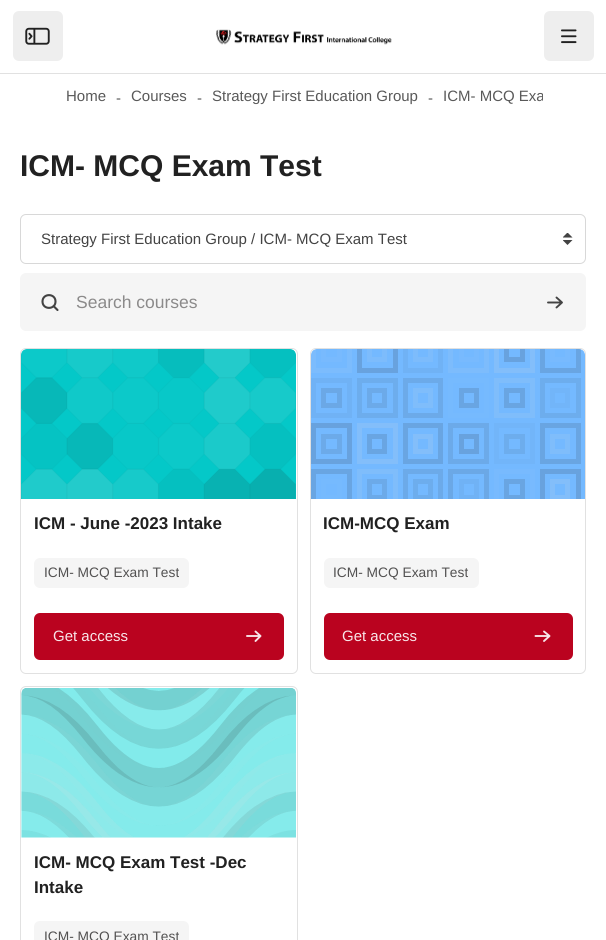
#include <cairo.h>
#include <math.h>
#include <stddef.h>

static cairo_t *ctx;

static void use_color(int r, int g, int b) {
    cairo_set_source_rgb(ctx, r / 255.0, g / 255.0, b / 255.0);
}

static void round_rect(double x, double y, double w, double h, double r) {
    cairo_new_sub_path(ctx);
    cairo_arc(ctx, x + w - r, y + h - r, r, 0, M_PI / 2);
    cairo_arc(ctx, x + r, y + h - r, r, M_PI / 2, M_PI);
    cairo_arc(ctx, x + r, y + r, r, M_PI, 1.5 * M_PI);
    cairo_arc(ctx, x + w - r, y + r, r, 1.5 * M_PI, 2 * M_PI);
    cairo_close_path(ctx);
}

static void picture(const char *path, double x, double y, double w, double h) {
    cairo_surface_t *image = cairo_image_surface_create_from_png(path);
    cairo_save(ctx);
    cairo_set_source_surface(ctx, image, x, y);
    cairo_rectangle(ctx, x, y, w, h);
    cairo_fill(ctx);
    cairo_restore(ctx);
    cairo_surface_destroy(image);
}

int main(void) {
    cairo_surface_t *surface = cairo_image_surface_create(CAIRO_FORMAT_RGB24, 606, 940);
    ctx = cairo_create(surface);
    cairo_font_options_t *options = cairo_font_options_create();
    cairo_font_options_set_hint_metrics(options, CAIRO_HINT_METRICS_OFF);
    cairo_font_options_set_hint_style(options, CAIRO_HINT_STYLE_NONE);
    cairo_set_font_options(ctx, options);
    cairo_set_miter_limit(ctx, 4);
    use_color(255, 255, 255);
    cairo_paint(ctx);
    use_color(225, 225, 225);
    cairo_rectangle(ctx, 0, 73, 606, 1);
    cairo_fill(ctx);
    use_color(238, 238, 238);
    round_rect(13, 11, 50, 50, 6);
    cairo_fill(ctx);
    picture("img1.png", 25, 27, 25, 18);
    picture("img2.png", 216, 29, 176, 16);
    round_rect(544, 11, 50, 50, 6);
    cairo_fill(ctx);
    picture("img3.png", 561, 29, 16, 15);
    cairo_select_font_face(ctx, "Liberation Sans", CAIRO_FONT_SLANT_NORMAL, CAIRO_FONT_WEIGHT_NORMAL);
    cairo_set_font_size(ctx, 15);
    use_color(89, 89, 89);
    cairo_move_to(ctx, 66, 101);
    cairo_show_text(ctx, "Home");
    cairo_move_to(ctx, 116, 103);
    cairo_show_text(ctx, "-");
    cairo_move_to(ctx, 131, 101);
    cairo_show_text(ctx, "Courses");
    cairo_move_to(ctx, 197, 103);
    cairo_show_text(ctx, "-");
    cairo_move_to(ctx, 212, 101);
    cairo_show_text(ctx, "Strategy First Education Group");
    cairo_move_to(ctx, 428, 103);
    cairo_show_text(ctx, "-");
    cairo_save(ctx);
    cairo_rectangle(ctx, 443, 85, 100, 25);
    cairo_clip(ctx);
    cairo_move_to(ctx, 443, 101);
    cairo_show_text(ctx, "ICM- MCQ Exa");
    cairo_restore(ctx);
    cairo_select_font_face(ctx, "Liberation Sans", CAIRO_FONT_SLANT_NORMAL, CAIRO_FONT_WEIGHT_BOLD);
    cairo_set_font_size(ctx, 30);
    use_color(33, 33, 33);
    cairo_move_to(ctx, 20, 176);
    cairo_show_text(ctx, "ICM- MCQ Exam Test");
    picture("img4.png", 563, 233, 10, 12);
    round_rect(20.5, 214.5, 565, 49, 5.5);
    use_color(216, 216, 216);
    cairo_set_line_width(ctx, 1);
    cairo_stroke(ctx);
    cairo_select_font_face(ctx, "Liberation Sans", CAIRO_FONT_SLANT_NORMAL, CAIRO_FONT_WEIGHT_NORMAL);
    cairo_set_font_size(ctx, 15);
    use_color(67, 67, 67);
    cairo_move_to(ctx, 41, 244);
    cairo_show_text(ctx, "Strategy First Education Group / ICM- MCQ Exam Test");
    use_color(245, 245, 245);
    round_rect(20, 273, 566, 58, 6);
    cairo_fill(ctx);
    cairo_new_path(ctx);
    cairo_move_to(ctx, 57.5, 310);
    cairo_line_to(ctx, 53.5, 306);
    cairo_move_to(ctx, 42.5, 301.5);
    cairo_curve_to(ctx, 42.5, 293, 55.5, 293, 55.5, 301.5);
    cairo_curve_to(ctx, 55.5, 310, 42.5, 310, 42.5, 301.5);
    cairo_close_path(ctx);
    use_color(67, 67, 67);
    cairo_set_line_width(ctx, 2.1);
    cairo_set_line_cap(ctx, CAIRO_LINE_CAP_ROUND);
    cairo_set_line_join(ctx, CAIRO_LINE_JOIN_ROUND);
    cairo_stroke(ctx);
    cairo_set_font_size(ctx, 17.5);
    use_color(139, 138, 138);
    cairo_move_to(ctx, 76, 308);
    cairo_show_text(ctx, "Search courses");
    cairo_new_path(ctx);
    cairo_move_to(ctx, 556.5, 297.5);
    cairo_line_to(ctx, 562, 302.5);
    cairo_line_to(ctx, 556.5, 307.5);
    cairo_move_to(ctx, 561.5, 302.5);
    cairo_line_to(ctx, 548, 302.5);
    use_color(67, 67, 67);
    cairo_set_line_width(ctx, 1.9);
    cairo_stroke(ctx);
    round_rect(20.5, 348.5, 277, 325, 5.5);
    use_color(225, 225, 225);
    cairo_set_line_width(ctx, 1);
    cairo_set_line_cap(ctx, CAIRO_LINE_CAP_BUTT);
    cairo_set_line_join(ctx, CAIRO_LINE_JOIN_MITER);
    cairo_stroke(ctx);
    picture("img5.png", 21, 349, 275, 150);
    cairo_select_font_face(ctx, "Liberation Sans", CAIRO_FONT_SLANT_NORMAL, CAIRO_FONT_WEIGHT_BOLD);
    cairo_set_font_size(ctx, 17);
    use_color(33, 33, 33);
    cairo_move_to(ctx, 34, 529);
    cairo_show_text(ctx, "ICM - June -2023 Intake");
    use_color(245, 245, 245);
    round_rect(34, 558, 155, 30, 6);
    cairo_fill(ctx);
    cairo_select_font_face(ctx, "Liberation Sans", CAIRO_FONT_SLANT_NORMAL, CAIRO_FONT_WEIGHT_NORMAL);
    cairo_set_font_size(ctx, 13.75);
    use_color(82, 81, 81);
    cairo_move_to(ctx, 44, 577);
    cairo_show_text(ctx, "ICM- MCQ Exam Test");
    use_color(186, 3, 31);
    round_rect(34, 613, 250, 47, 6);
    cairo_fill(ctx);
    cairo_set_font_size(ctx, 15);
    use_color(248, 230, 233);
    cairo_move_to(ctx, 53, 641);
    cairo_show_text(ctx, "Get access");
    cairo_new_path(ctx);
    cairo_move_to(ctx, 255.5, 631.5);
    cairo_line_to(ctx, 260.5, 636);
    cairo_line_to(ctx, 255.5, 641);
    cairo_move_to(ctx, 260.5, 636);
    cairo_line_to(ctx, 247, 636);
    cairo_set_line_width(ctx, 1.9);
    cairo_set_line_cap(ctx, CAIRO_LINE_CAP_ROUND);
    cairo_set_line_join(ctx, CAIRO_LINE_JOIN_ROUND);
    cairo_stroke(ctx);
    round_rect(310.5, 348.5, 275, 325, 5.5);
    use_color(225, 225, 225);
    cairo_set_line_width(ctx, 1);
    cairo_set_line_cap(ctx, CAIRO_LINE_CAP_BUTT);
    cairo_set_line_join(ctx, CAIRO_LINE_JOIN_MITER);
    cairo_stroke(ctx);
    picture("img6.png", 311, 349, 274, 150);
    cairo_select_font_face(ctx, "Liberation Sans", CAIRO_FONT_SLANT_NORMAL, CAIRO_FONT_WEIGHT_BOLD);
    cairo_set_font_size(ctx, 17);
    use_color(33, 33, 33);
    cairo_move_to(ctx, 323, 529);
    cairo_show_text(ctx, "ICM-MCQ Exam");
    use_color(245, 245, 245);
    round_rect(324, 558, 155, 30, 6);
    cairo_fill(ctx);
    cairo_select_font_face(ctx, "Liberation Sans", CAIRO_FONT_SLANT_NORMAL, CAIRO_FONT_WEIGHT_NORMAL);
    cairo_set_font_size(ctx, 13.75);
    use_color(82, 81, 81);
    cairo_move_to(ctx, 333, 577);
    cairo_show_text(ctx, "ICM- MCQ Exam Test");
    use_color(186, 3, 31);
    round_rect(324, 613, 249, 47, 6);
    cairo_fill(ctx);
    cairo_set_font_size(ctx, 15);
    use_color(248, 230, 233);
    cairo_move_to(ctx, 342, 641);
    cairo_show_text(ctx, "Get access");
    cairo_new_path(ctx);
    cairo_move_to(ctx, 544, 631.5);
    cairo_line_to(ctx, 549.5, 636);
    cairo_line_to(ctx, 544, 641);
    cairo_move_to(ctx, 549, 636);
    cairo_line_to(ctx, 535.5, 636);
    cairo_set_line_width(ctx, 1.9);
    cairo_set_line_cap(ctx, CAIRO_LINE_CAP_ROUND);
    cairo_set_line_join(ctx, CAIRO_LINE_JOIN_ROUND);
    cairo_stroke(ctx);
    round_rect(20.5, 686.5, 277, 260, 5.5);
    use_color(225, 225, 225);
    cairo_set_line_width(ctx, 1);
    cairo_set_line_cap(ctx, CAIRO_LINE_CAP_BUTT);
    cairo_set_line_join(ctx, CAIRO_LINE_JOIN_MITER);
    cairo_stroke(ctx);
    picture("img7.png", 21, 688, 275, 150);
    cairo_select_font_face(ctx, "Liberation Sans", CAIRO_FONT_SLANT_NORMAL, CAIRO_FONT_WEIGHT_BOLD);
    cairo_set_font_size(ctx, 17);
    use_color(33, 33, 33);
    cairo_move_to(ctx, 34, 868);
    cairo_show_text(ctx, "ICM- MCQ Exam Test -Dec");
    cairo_move_to(ctx, 34, 893);
    cairo_show_text(ctx, "Intake");
    use_color(245, 245, 245);
    cairo_new_path(ctx);
    cairo_move_to(ctx, 40, 921);
    cairo_line_to(ctx, 183, 921);
    cairo_curve_to(ctx, 186.5, 921, 189, 923.5, 189, 927);
    cairo_line_to(ctx, 189, 940);
    cairo_line_to(ctx, 34, 940);
    cairo_line_to(ctx, 34, 927);
    cairo_curve_to(ctx, 34, 923.5, 36.5, 921, 40, 921);
    cairo_close_path(ctx);
    cairo_fill(ctx);
    cairo_select_font_face(ctx, "Liberation Sans", CAIRO_FONT_SLANT_NORMAL, CAIRO_FONT_WEIGHT_NORMAL);
    cairo_set_font_size(ctx, 13.75);
    use_color(82, 81, 81);
    cairo_move_to(ctx, 44, 941);
    cairo_show_text(ctx, "ICM- MCQ Exam Test");
    cairo_surface_write_to_png(surface, "result.png");
    cairo_font_options_destroy(options);
    cairo_destroy(ctx);
    cairo_surface_destroy(surface);
    return 0;
}
